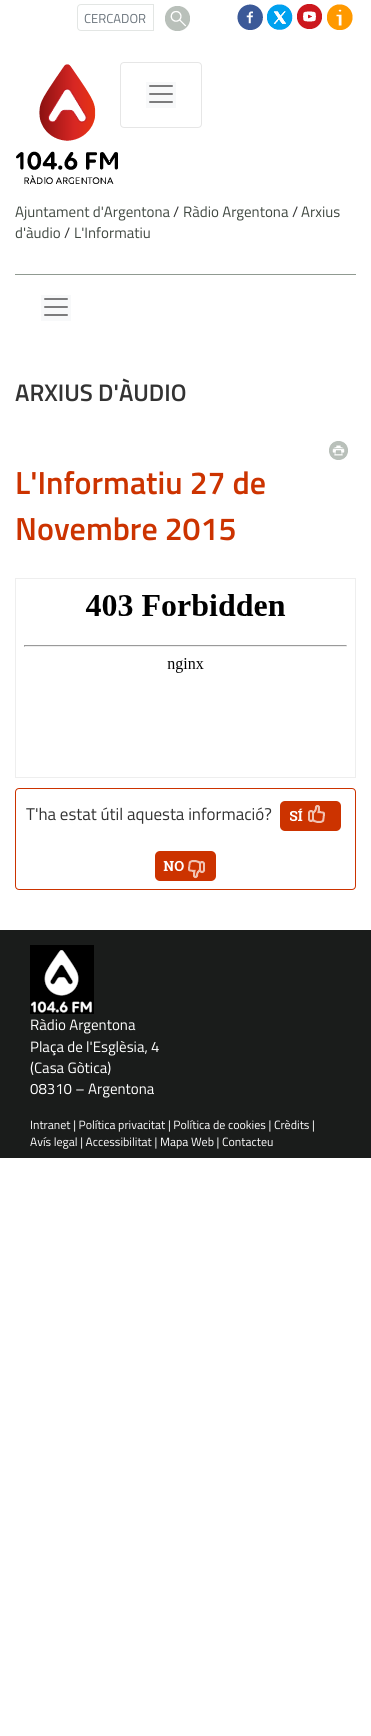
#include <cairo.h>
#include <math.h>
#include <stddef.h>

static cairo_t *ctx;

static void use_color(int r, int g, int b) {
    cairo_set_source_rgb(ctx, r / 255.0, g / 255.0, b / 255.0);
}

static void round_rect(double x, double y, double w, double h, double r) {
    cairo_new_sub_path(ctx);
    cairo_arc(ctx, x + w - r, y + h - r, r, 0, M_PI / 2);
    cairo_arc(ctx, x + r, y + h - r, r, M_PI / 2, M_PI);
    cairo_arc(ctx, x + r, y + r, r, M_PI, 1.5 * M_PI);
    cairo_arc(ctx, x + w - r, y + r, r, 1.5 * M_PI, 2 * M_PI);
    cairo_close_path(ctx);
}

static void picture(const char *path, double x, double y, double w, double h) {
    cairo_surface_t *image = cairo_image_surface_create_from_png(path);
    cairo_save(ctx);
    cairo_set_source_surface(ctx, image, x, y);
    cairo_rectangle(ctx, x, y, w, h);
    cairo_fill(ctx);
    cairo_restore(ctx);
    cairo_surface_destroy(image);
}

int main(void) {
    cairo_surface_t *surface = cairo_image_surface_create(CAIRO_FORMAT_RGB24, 371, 1736);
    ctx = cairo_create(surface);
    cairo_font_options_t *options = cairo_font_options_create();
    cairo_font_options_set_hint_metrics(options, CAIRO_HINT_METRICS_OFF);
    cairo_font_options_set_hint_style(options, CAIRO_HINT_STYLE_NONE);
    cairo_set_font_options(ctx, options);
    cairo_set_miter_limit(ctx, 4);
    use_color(255, 255, 255);
    cairo_paint(ctx);
    cairo_new_path(ctx);
    cairo_move_to(ctx, 81, 4.5);
    cairo_line_to(ctx, 153.5, 4.5);
    cairo_line_to(ctx, 153.5, 30.5);
    cairo_line_to(ctx, 81, 30.5);
    cairo_curve_to(ctx, 79, 30.5, 77.5, 29, 77.5, 27);
    cairo_line_to(ctx, 77.5, 8);
    cairo_curve_to(ctx, 77.5, 6, 79, 4.5, 81, 4.5);
    cairo_close_path(ctx);
    use_color(227, 230, 228);
    cairo_set_line_width(ctx, 1);
    cairo_stroke(ctx);
    cairo_select_font_face(ctx, "Titillium Web", CAIRO_FONT_SLANT_NORMAL, CAIRO_FONT_WEIGHT_NORMAL);
    cairo_set_font_size(ctx, 13);
    use_color(108, 117, 125);
    cairo_move_to(ctx, 84, 23);
    cairo_show_text(ctx, "CERCADOR");
    picture("img1.png", 165, 6, 25, 25);
    picture("img2.png", 237, 4, 26, 26);
    picture("img3.png", 267, 4, 26, 26);
    picture("img4.png", 297, 4, 25, 25);
    picture("img5.png", 327, 4, 26, 26);
    picture("img6.png", 16, 64, 102, 120);
    round_rect(120.5, 62.5, 81, 65, 3.5);
    use_color(230, 230, 230);
    cairo_stroke(ctx);
    picture("img7.png", 146, 82, 30, 26);
    cairo_set_font_size(ctx, 15);
    use_color(65, 73, 66);
    cairo_move_to(ctx, 15, 217);
    cairo_show_text(ctx, "Ajuntament d'Argentona");
    use_color(51, 51, 51);
    cairo_move_to(ctx, 173, 217);
    cairo_show_text(ctx, "/");
    use_color(65, 73, 66);
    cairo_move_to(ctx, 183, 217);
    cairo_show_text(ctx, "Ràdio Argentona");
    use_color(51, 51, 51);
    cairo_move_to(ctx, 292, 217);
    cairo_show_text(ctx, "/");
    use_color(65, 73, 66);
    cairo_move_to(ctx, 301, 217);
    cairo_show_text(ctx, "Arxius");
    cairo_move_to(ctx, 15, 238);
    cairo_show_text(ctx, "d'àudio");
    use_color(51, 51, 51);
    cairo_move_to(ctx, 64, 238);
    cairo_show_text(ctx, "/");
    use_color(65, 73, 66);
    cairo_move_to(ctx, 74, 238);
    cairo_show_text(ctx, "L'Informatiu");
    use_color(144, 154, 145);
    cairo_rectangle(ctx, 15, 274, 341, 1);
    cairo_fill(ctx);
    picture("img7.png", 41, 295, 30, 26);
    cairo_select_font_face(ctx, "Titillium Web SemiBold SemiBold", CAIRO_FONT_SLANT_NORMAL, CAIRO_FONT_WEIGHT_NORMAL);
    cairo_set_font_size(ctx, 24);
    use_color(51, 51, 51);
    cairo_move_to(ctx, 15, 401);
    cairo_show_text(ctx, "ARXIUS D'ÀUDIO");
    picture("img8.png", 329, 441, 19, 19);
    cairo_set_font_size(ctx, 32);
    use_color(204, 51, 0);
    cairo_move_to(ctx, 15, 494);
    cairo_show_text(ctx, "L'Informatiu 27 de");
    cairo_move_to(ctx, 15, 540);
    cairo_show_text(ctx, "Novembre 2015");
    cairo_rectangle(ctx, 15.5, 578.5, 340, 199);
    use_color(238, 238, 238);
    cairo_stroke(ctx);
    picture("img9.png", 24, 594, 323, 79);
    round_rect(15.5, 788.5, 340, 101, 3.5);
    use_color(204, 51, 0);
    cairo_stroke(ctx);
    cairo_select_font_face(ctx, "Titillium Web", CAIRO_FONT_SLANT_NORMAL, CAIRO_FONT_WEIGHT_NORMAL);
    cairo_set_font_size(ctx, 17);
    use_color(51, 51, 51);
    cairo_move_to(ctx, 26, 820);
    cairo_show_text(ctx, "T'ha estat útil aquesta informació?");
    use_color(204, 51, 0);
    round_rect(280, 801, 61, 30, 5);
    cairo_fill(ctx);
    picture("img10.png", 290, 805, 35, 18);
    round_rect(155, 851, 61, 30, 5);
    cairo_fill(ctx);
    picture("img11.png", 163, 860, 43, 19);
    use_color(26, 28, 27);
    cairo_rectangle(ctx, 0, 930, 371, 228);
    cairo_fill(ctx);
    picture("img12.png", 30, 945, 64, 69);
    cairo_set_font_size(ctx, 15);
    use_color(255, 255, 255);
    cairo_move_to(ctx, 30, 1030);
    cairo_show_text(ctx, "Ràdio Argentona");
    cairo_move_to(ctx, 30, 1052);
    cairo_show_text(ctx, "Plaça de l'Esglèsia, 4");
    cairo_move_to(ctx, 30, 1073);
    cairo_show_text(ctx, "(Casa Gòtica)");
    cairo_move_to(ctx, 30, 1094);
    cairo_show_text(ctx, "08310 – Argentona");
    cairo_set_font_size(ctx, 12);
    cairo_move_to(ctx, 30, 1129);
    cairo_show_text(ctx, "Intranet | Política privacitat | Política de cookies | Crèdits |");
    cairo_move_to(ctx, 30, 1146);
    cairo_show_text(ctx, "Avís legal | Accessibilitat | Mapa Web | Contacteu");
    cairo_surface_write_to_png(surface, "result.png");
    cairo_font_options_destroy(options);
    cairo_destroy(ctx);
    cairo_surface_destroy(surface);
    return 0;
}
